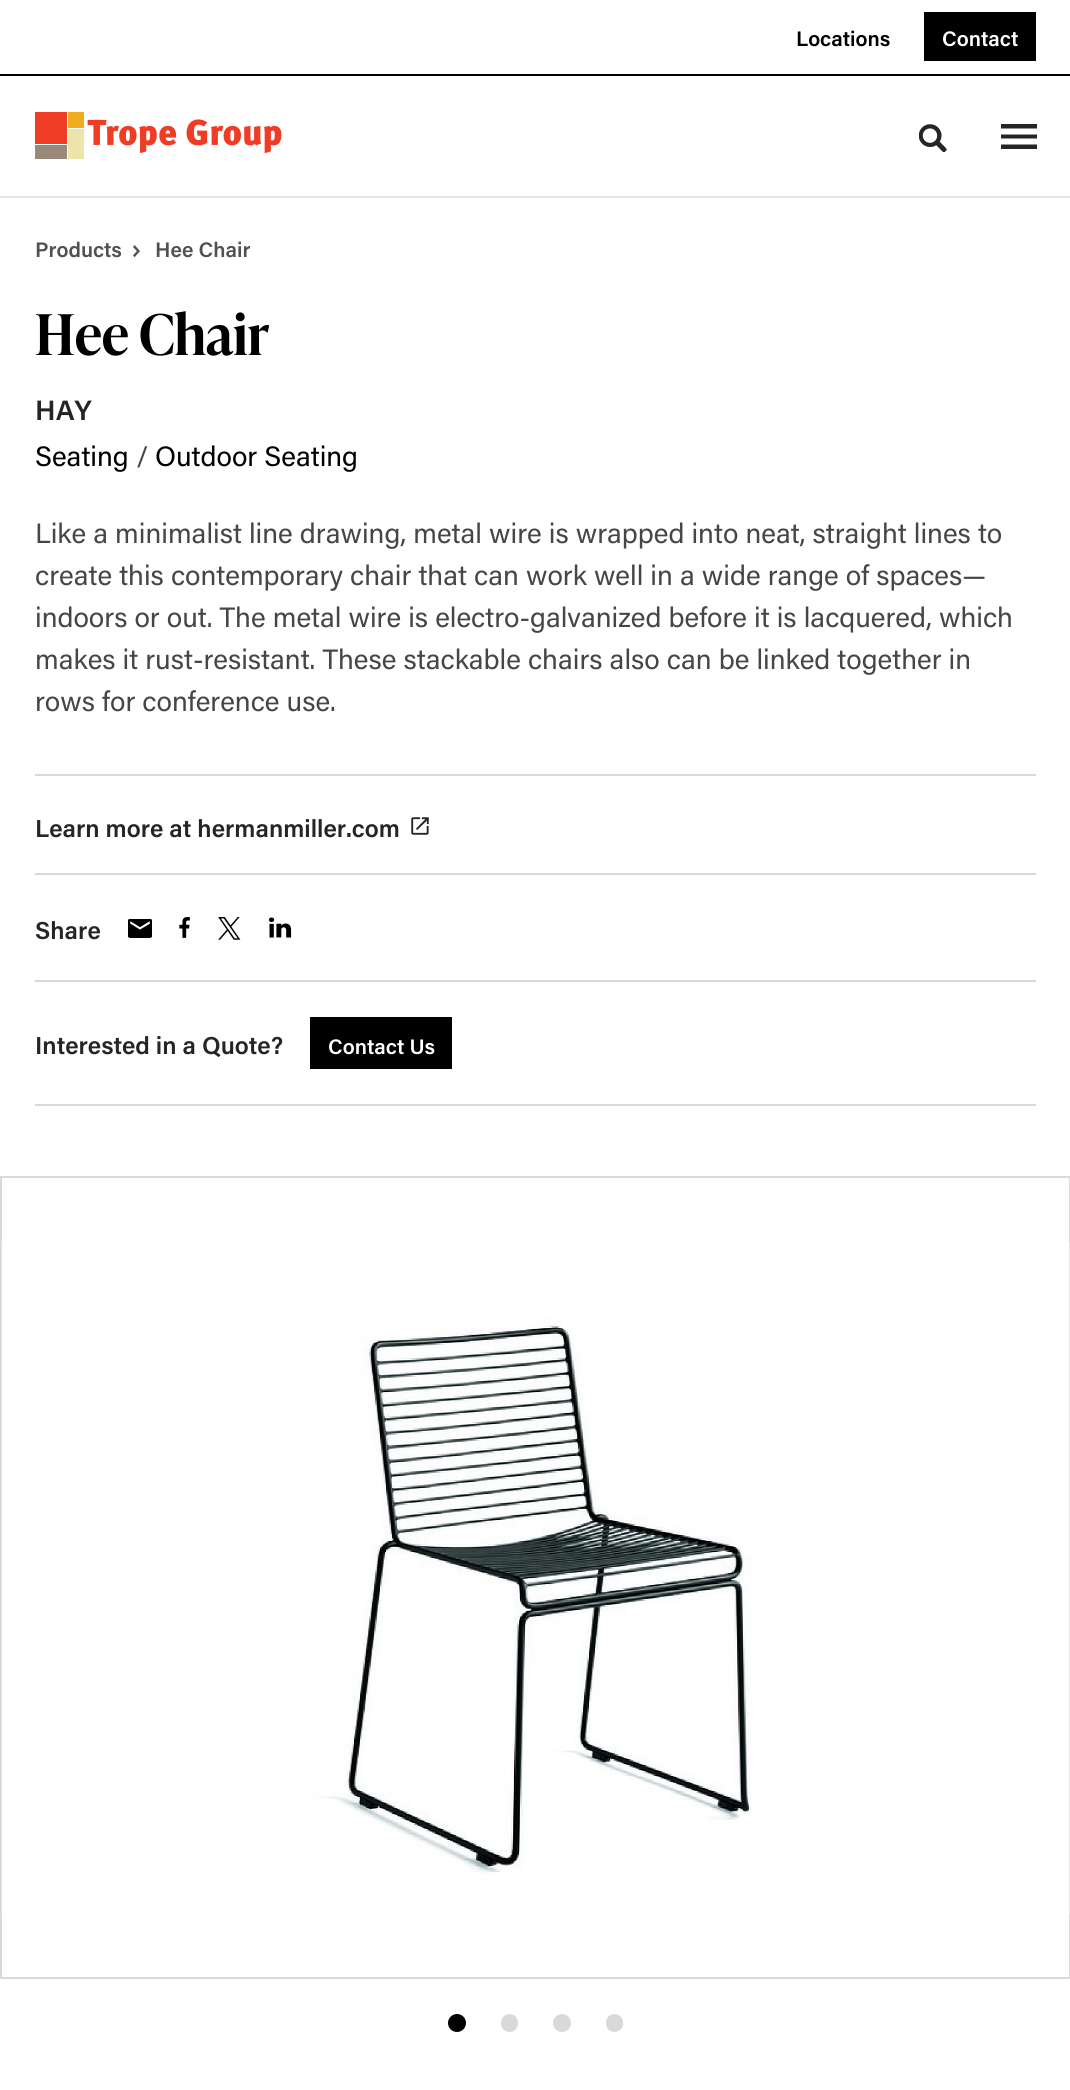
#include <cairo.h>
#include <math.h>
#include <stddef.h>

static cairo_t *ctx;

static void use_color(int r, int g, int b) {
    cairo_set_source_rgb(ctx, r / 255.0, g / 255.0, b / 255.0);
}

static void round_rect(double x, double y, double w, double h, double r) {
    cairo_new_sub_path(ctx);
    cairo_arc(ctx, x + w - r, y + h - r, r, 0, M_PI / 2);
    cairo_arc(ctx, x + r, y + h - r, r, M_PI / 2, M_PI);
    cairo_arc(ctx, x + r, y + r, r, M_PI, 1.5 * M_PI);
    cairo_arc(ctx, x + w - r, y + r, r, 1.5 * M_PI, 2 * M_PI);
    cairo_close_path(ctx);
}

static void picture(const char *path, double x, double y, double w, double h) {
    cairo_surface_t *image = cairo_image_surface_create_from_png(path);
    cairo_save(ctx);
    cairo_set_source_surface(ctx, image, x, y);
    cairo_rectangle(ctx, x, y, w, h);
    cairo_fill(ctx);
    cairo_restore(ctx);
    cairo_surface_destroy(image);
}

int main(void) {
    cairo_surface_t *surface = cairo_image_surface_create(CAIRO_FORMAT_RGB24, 1070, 2090);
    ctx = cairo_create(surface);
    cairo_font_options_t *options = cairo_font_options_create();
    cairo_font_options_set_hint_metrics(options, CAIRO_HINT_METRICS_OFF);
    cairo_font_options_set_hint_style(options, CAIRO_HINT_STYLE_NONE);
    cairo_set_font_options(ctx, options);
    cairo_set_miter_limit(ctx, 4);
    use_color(255, 255, 255);
    cairo_paint(ctx);
    use_color(0, 0, 0);
    cairo_rectangle(ctx, 0, 74, 1070, 2);
    cairo_fill(ctx);
    cairo_select_font_face(ctx, "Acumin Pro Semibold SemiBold", CAIRO_FONT_SLANT_NORMAL, CAIRO_FONT_WEIGHT_NORMAL);
    cairo_set_font_size(ctx, 21);
    cairo_move_to(ctx, 796, 46);
    cairo_show_text(ctx, "Locations");
    cairo_rectangle(ctx, 924, 12, 112, 49);
    cairo_fill(ctx);
    use_color(255, 255, 255);
    cairo_move_to(ctx, 942, 46);
    cairo_show_text(ctx, "Contact");
    use_color(230, 230, 230);
    cairo_rectangle(ctx, 0, 196, 1070, 2);
    cairo_fill(ctx);
    picture("img1.png", 35, 112, 247, 47);
    picture("img2.png", 919, 124, 28, 28);
    cairo_save(ctx);
    cairo_rectangle(ctx, 1001, 124, 37, 25);
    cairo_clip(ctx);
    use_color(37, 37, 37);
    cairo_set_fill_rule(ctx, CAIRO_FILL_RULE_EVEN_ODD);
    cairo_new_path(ctx);
    cairo_move_to(ctx, 1000, 149);
    cairo_line_to(ctx, 1037, 149);
    cairo_line_to(ctx, 1037, 144.5);
    cairo_line_to(ctx, 1000, 144.5);
    cairo_close_path(ctx);
    cairo_move_to(ctx, 1000, 138.5);
    cairo_line_to(ctx, 1037, 138.5);
    cairo_line_to(ctx, 1037, 134.5);
    cairo_line_to(ctx, 1000, 134.5);
    cairo_close_path(ctx);
    cairo_move_to(ctx, 1000, 124);
    cairo_line_to(ctx, 1000, 128.5);
    cairo_line_to(ctx, 1037, 128.5);
    cairo_line_to(ctx, 1037, 124);
    cairo_close_path(ctx);
    cairo_fill(ctx);
    cairo_restore(ctx);
    use_color(81, 81, 81);
    cairo_move_to(ctx, 35, 257);
    cairo_show_text(ctx, "Products");
    picture("img3.png", 133, 245, 7, 12);
    cairo_move_to(ctx, 155, 257);
    cairo_show_text(ctx, "Hee Chair");
    cairo_select_font_face(ctx, "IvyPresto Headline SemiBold", CAIRO_FONT_SLANT_NORMAL, CAIRO_FONT_WEIGHT_NORMAL);
    cairo_set_font_size(ctx, 56);
    use_color(0, 0, 0);
    cairo_move_to(ctx, 35, 355);
    cairo_show_text(ctx, "Hee Chair");
    cairo_select_font_face(ctx, "Acumin Pro Semibold SemiBold", CAIRO_FONT_SLANT_NORMAL, CAIRO_FONT_WEIGHT_NORMAL);
    cairo_set_font_size(ctx, 28);
    use_color(37, 37, 37);
    cairo_move_to(ctx, 35, 420);
    cairo_show_text(ctx, "HAY");
    cairo_select_font_face(ctx, "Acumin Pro", CAIRO_FONT_SLANT_NORMAL, CAIRO_FONT_WEIGHT_NORMAL);
    use_color(0, 0, 0);
    cairo_move_to(ctx, 35, 466);
    cairo_show_text(ctx, "Seating");
    use_color(70, 70, 70);
    cairo_move_to(ctx, 136, 466);
    cairo_show_text(ctx, "/");
    use_color(0, 0, 0);
    cairo_move_to(ctx, 155, 466);
    cairo_show_text(ctx, "Outdoor Seating");
    use_color(70, 70, 70);
    cairo_move_to(ctx, 35, 543);
    cairo_show_text(ctx, "Like a minimalist line drawing, metal wire is wrapped into neat, straight lines to");
    cairo_move_to(ctx, 35, 585);
    cairo_show_text(ctx, "create this contemporary chair that can work well in a wide range of spaces—");
    cairo_move_to(ctx, 35, 627);
    cairo_show_text(ctx, "indoors or out. The metal wire is electro-galvanized before it is lacquered, which");
    cairo_move_to(ctx, 35, 669);
    cairo_show_text(ctx, "makes it rust-resistant. These stackable chairs also can be linked together in");
    cairo_move_to(ctx, 35, 711);
    cairo_show_text(ctx, "rows for conference use.");
    use_color(217, 217, 217);
    cairo_rectangle(ctx, 35, 1104, 1001, 2);
    cairo_fill(ctx);
    cairo_rectangle(ctx, 35, 774, 1001, 2);
    cairo_fill(ctx);
    cairo_select_font_face(ctx, "Acumin Pro Semibold SemiBold", CAIRO_FONT_SLANT_NORMAL, CAIRO_FONT_WEIGHT_NORMAL);
    cairo_set_font_size(ctx, 24.5);
    use_color(37, 37, 37);
    cairo_move_to(ctx, 35, 837);
    cairo_show_text(ctx, "Learn more at hermanmiller.com");
    picture("img4.png", 411, 817, 18, 18);
    use_color(217, 217, 217);
    cairo_rectangle(ctx, 35, 873, 1001, 2);
    cairo_fill(ctx);
    use_color(37, 37, 37);
    cairo_move_to(ctx, 35, 939);
    cairo_show_text(ctx, "Share");
    picture("img5.png", 128, 919, 24, 19);
    picture("img6.png", 179, 917, 11, 21);
    picture("img7.png", 218, 917, 23, 23);
    picture("img8.png", 268, 917, 24, 21);
    use_color(217, 217, 217);
    cairo_rectangle(ctx, 35, 980, 1001, 2);
    cairo_fill(ctx);
    use_color(37, 37, 37);
    cairo_move_to(ctx, 35, 1054);
    cairo_show_text(ctx, "Interested in a Quote?");
    use_color(0, 0, 0);
    cairo_rectangle(ctx, 310, 1017, 142, 52);
    cairo_fill(ctx);
    cairo_set_font_size(ctx, 21);
    use_color(255, 255, 255);
    cairo_move_to(ctx, 328, 1054);
    cairo_show_text(ctx, "Contact Us");
    cairo_rectangle(ctx, 1, 1177, 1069, 801);
    use_color(217, 217, 217);
    cairo_stroke(ctx);
    picture("img9.png", 1, 1242, 1069, 673);
    use_color(0, 0, 0);
    cairo_arc(ctx, 457, 2023, 9, 0, 2 * M_PI);
    cairo_fill(ctx);
    use_color(217, 217, 217);
    round_rect(501, 2014, 17, 18, 8.5);
    cairo_fill(ctx);
    cairo_arc(ctx, 562, 2023, 9, 0, 2 * M_PI);
    cairo_fill(ctx);
    round_rect(606, 2014, 17, 18, 8.5);
    cairo_fill(ctx);
    cairo_surface_write_to_png(surface, "result.png");
    cairo_font_options_destroy(options);
    cairo_destroy(ctx);
    cairo_surface_destroy(surface);
    return 0;
}
